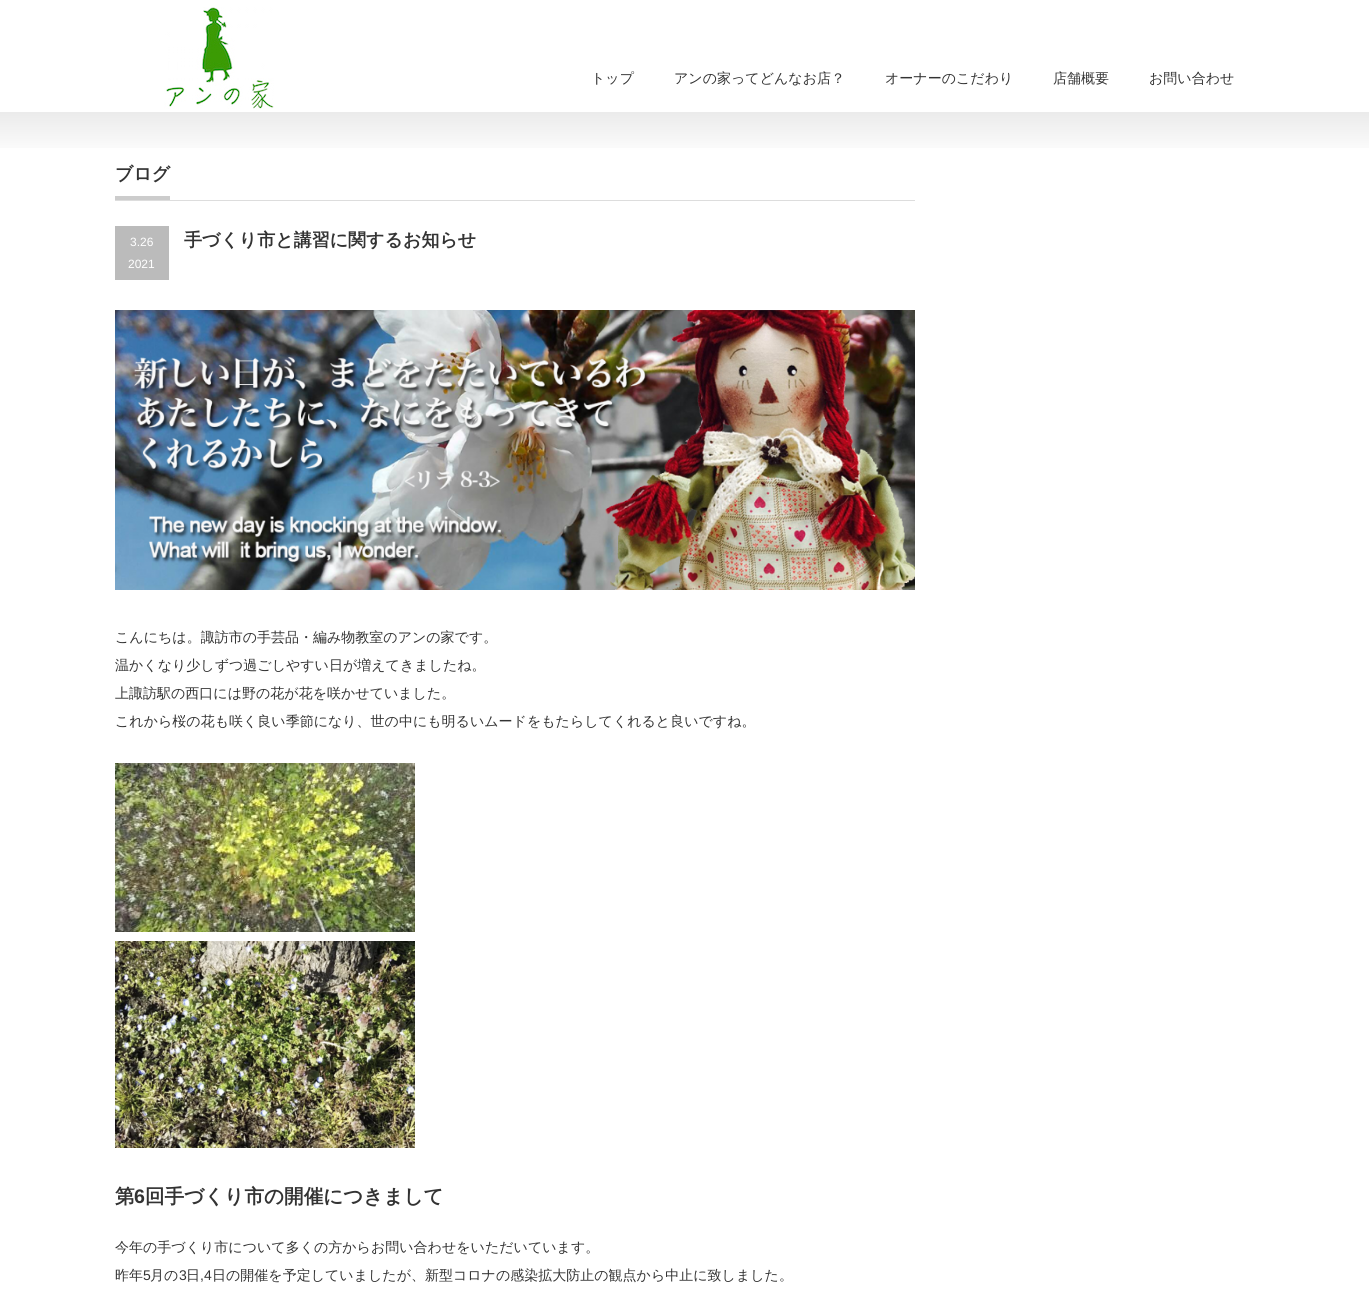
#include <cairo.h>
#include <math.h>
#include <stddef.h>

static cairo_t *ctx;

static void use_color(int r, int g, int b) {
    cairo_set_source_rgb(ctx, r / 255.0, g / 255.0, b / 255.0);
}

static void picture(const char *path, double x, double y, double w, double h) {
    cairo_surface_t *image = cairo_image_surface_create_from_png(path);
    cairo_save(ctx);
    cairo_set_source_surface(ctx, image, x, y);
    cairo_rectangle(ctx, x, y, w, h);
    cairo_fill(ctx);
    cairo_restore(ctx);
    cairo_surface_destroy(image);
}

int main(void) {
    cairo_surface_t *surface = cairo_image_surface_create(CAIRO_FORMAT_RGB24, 1369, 1296);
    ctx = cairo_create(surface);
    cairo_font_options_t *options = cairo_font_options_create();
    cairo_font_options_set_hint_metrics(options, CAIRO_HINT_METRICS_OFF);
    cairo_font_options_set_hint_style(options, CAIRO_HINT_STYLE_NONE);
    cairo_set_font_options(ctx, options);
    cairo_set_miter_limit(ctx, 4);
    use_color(255, 255, 255);
    cairo_paint(ctx);
    picture("img1.png", 164, 7, 110, 102);
    cairo_select_font_face(ctx, "WenQuanYi Zen Hei Medium", CAIRO_FONT_SLANT_NORMAL, CAIRO_FONT_WEIGHT_NORMAL);
    cairo_set_font_size(ctx, 14);
    use_color(51, 51, 51);
    cairo_move_to(ctx, 591, 83);
    cairo_show_text(ctx, "トップ");
    cairo_move_to(ctx, 674, 83);
    cairo_show_text(ctx, "アンの家ってどんなお店？");
    cairo_move_to(ctx, 885, 83);
    cairo_show_text(ctx, "オーナーのこだわり");
    cairo_move_to(ctx, 1053, 83);
    cairo_show_text(ctx, "店舗概要");
    cairo_move_to(ctx, 1149, 83);
    cairo_show_text(ctx, "お問い合わせ");
    picture("img2.png", 0, 112, 1369, 36);
    use_color(221, 221, 221);
    cairo_rectangle(ctx, 115, 200, 800, 1);
    cairo_fill(ctx);
    use_color(204, 204, 204);
    cairo_rectangle(ctx, 115, 196, 55, 4);
    cairo_fill(ctx);
    cairo_select_font_face(ctx, "WenQuanYi Zen Hei", CAIRO_FONT_SLANT_NORMAL, CAIRO_FONT_WEIGHT_BOLD);
    cairo_set_font_size(ctx, 18);
    use_color(51, 51, 51);
    cairo_move_to(ctx, 115, 180);
    cairo_show_text(ctx, "ブログ");
    use_color(187, 187, 187);
    cairo_rectangle(ctx, 115, 226, 54, 54);
    cairo_fill(ctx);
    cairo_select_font_face(ctx, "Liberation Sans", CAIRO_FONT_SLANT_NORMAL, CAIRO_FONT_WEIGHT_NORMAL);
    cairo_set_font_size(ctx, 12);
    use_color(255, 255, 255);
    cairo_move_to(ctx, 130, 246);
    cairo_show_text(ctx, "3.26");
    cairo_move_to(ctx, 128, 268);
    cairo_show_text(ctx, "2021");
    cairo_select_font_face(ctx, "WenQuanYi Zen Hei", CAIRO_FONT_SLANT_NORMAL, CAIRO_FONT_WEIGHT_BOLD);
    cairo_set_font_size(ctx, 18);
    use_color(51, 51, 51);
    cairo_move_to(ctx, 184, 246);
    cairo_show_text(ctx, "手づくり市と講習に関するお知らせ");
    picture("img3.png", 115, 310, 800, 280);
    cairo_select_font_face(ctx, "WenQuanYi Zen Hei Medium", CAIRO_FONT_SLANT_NORMAL, CAIRO_FONT_WEIGHT_NORMAL);
    cairo_set_font_size(ctx, 14);
    cairo_move_to(ctx, 115, 642);
    cairo_show_text(ctx, "こんにちは。諏訪市の手芸品・編み物教室のアンの家です。");
    cairo_move_to(ctx, 115, 670);
    cairo_show_text(ctx, "温かくなり少しずつ過ごしやすい日が増えてきましたね。");
    cairo_move_to(ctx, 115, 698);
    cairo_show_text(ctx, "上諏訪駅の西口には野の花が花を咲かせていました。");
    cairo_move_to(ctx, 115, 726);
    cairo_show_text(ctx, "これから桜の花も咲く良い季節になり、世の中にも明るいムードをもたらしてくれると良いですね。");
    picture("img4.png", 115, 763, 300, 169);
    picture("img5.png", 115, 941, 300, 207);
    cairo_select_font_face(ctx, "WenQuanYi Zen Hei", CAIRO_FONT_SLANT_NORMAL, CAIRO_FONT_WEIGHT_BOLD);
    cairo_set_font_size(ctx, 19.6);
    cairo_move_to(ctx, 115, 1203);
    cairo_show_text(ctx, "第");
    cairo_select_font_face(ctx, "Liberation Sans", CAIRO_FONT_SLANT_NORMAL, CAIRO_FONT_WEIGHT_BOLD);
    cairo_move_to(ctx, 134, 1203);
    cairo_show_text(ctx, "6");
    cairo_select_font_face(ctx, "WenQuanYi Zen Hei", CAIRO_FONT_SLANT_NORMAL, CAIRO_FONT_WEIGHT_BOLD);
    cairo_move_to(ctx, 145, 1203);
    cairo_show_text(ctx, "回手づくり市の開催につきまして");
    cairo_select_font_face(ctx, "WenQuanYi Zen Hei Medium", CAIRO_FONT_SLANT_NORMAL, CAIRO_FONT_WEIGHT_NORMAL);
    cairo_set_font_size(ctx, 14);
    cairo_move_to(ctx, 115, 1252);
    cairo_show_text(ctx, "今年の手づくり市について多くの方からお問い合わせをいただいています。");
    cairo_move_to(ctx, 115, 1280);
    cairo_show_text(ctx, "昨年");
    cairo_select_font_face(ctx, "Liberation Sans", CAIRO_FONT_SLANT_NORMAL, CAIRO_FONT_WEIGHT_NORMAL);
    cairo_move_to(ctx, 143, 1280);
    cairo_show_text(ctx, "5");
    cairo_select_font_face(ctx, "WenQuanYi Zen Hei Medium", CAIRO_FONT_SLANT_NORMAL, CAIRO_FONT_WEIGHT_NORMAL);
    cairo_move_to(ctx, 150, 1280);
    cairo_show_text(ctx, "月の");
    cairo_select_font_face(ctx, "Liberation Sans", CAIRO_FONT_SLANT_NORMAL, CAIRO_FONT_WEIGHT_NORMAL);
    cairo_move_to(ctx, 179, 1280);
    cairo_show_text(ctx, "3");
    cairo_select_font_face(ctx, "WenQuanYi Zen Hei Medium", CAIRO_FONT_SLANT_NORMAL, CAIRO_FONT_WEIGHT_NORMAL);
    cairo_move_to(ctx, 186, 1280);
    cairo_show_text(ctx, "日");
    cairo_select_font_face(ctx, "Liberation Sans", CAIRO_FONT_SLANT_NORMAL, CAIRO_FONT_WEIGHT_NORMAL);
    cairo_move_to(ctx, 200, 1280);
    cairo_show_text(ctx, ",4");
    cairo_select_font_face(ctx, "WenQuanYi Zen Hei Medium", CAIRO_FONT_SLANT_NORMAL, CAIRO_FONT_WEIGHT_NORMAL);
    cairo_move_to(ctx, 212, 1280);
    cairo_show_text(ctx, "日の開催を予定していましたが、新型コロナの感染拡大防止の観点から中止に致しました。");
    cairo_surface_write_to_png(surface, "result.png");
    cairo_font_options_destroy(options);
    cairo_destroy(ctx);
    cairo_surface_destroy(surface);
    return 0;
}
